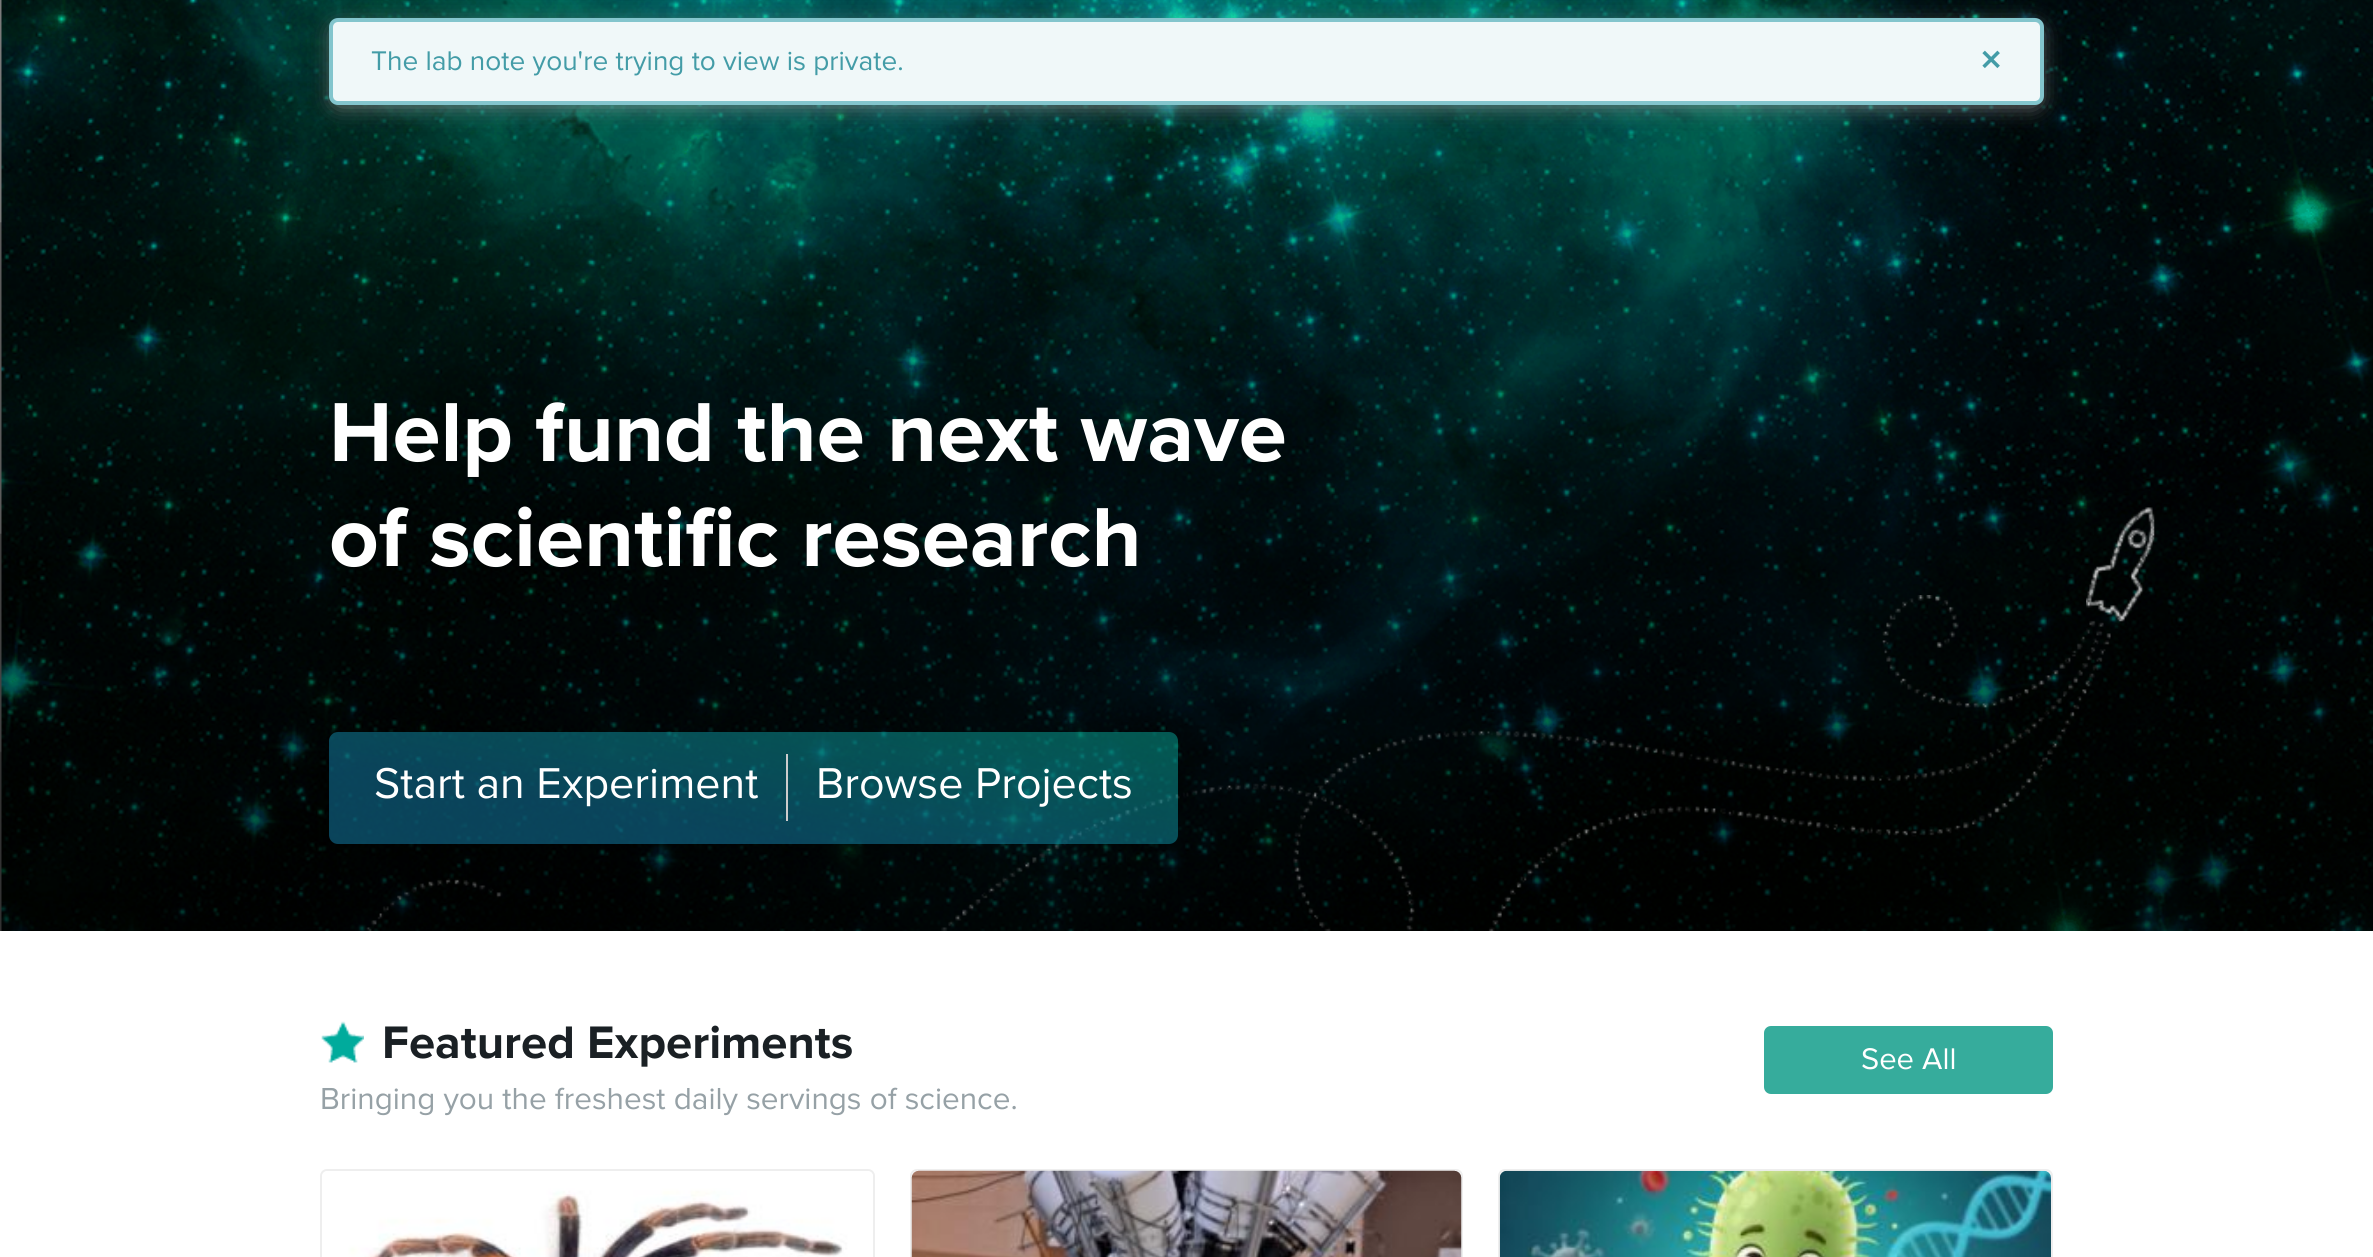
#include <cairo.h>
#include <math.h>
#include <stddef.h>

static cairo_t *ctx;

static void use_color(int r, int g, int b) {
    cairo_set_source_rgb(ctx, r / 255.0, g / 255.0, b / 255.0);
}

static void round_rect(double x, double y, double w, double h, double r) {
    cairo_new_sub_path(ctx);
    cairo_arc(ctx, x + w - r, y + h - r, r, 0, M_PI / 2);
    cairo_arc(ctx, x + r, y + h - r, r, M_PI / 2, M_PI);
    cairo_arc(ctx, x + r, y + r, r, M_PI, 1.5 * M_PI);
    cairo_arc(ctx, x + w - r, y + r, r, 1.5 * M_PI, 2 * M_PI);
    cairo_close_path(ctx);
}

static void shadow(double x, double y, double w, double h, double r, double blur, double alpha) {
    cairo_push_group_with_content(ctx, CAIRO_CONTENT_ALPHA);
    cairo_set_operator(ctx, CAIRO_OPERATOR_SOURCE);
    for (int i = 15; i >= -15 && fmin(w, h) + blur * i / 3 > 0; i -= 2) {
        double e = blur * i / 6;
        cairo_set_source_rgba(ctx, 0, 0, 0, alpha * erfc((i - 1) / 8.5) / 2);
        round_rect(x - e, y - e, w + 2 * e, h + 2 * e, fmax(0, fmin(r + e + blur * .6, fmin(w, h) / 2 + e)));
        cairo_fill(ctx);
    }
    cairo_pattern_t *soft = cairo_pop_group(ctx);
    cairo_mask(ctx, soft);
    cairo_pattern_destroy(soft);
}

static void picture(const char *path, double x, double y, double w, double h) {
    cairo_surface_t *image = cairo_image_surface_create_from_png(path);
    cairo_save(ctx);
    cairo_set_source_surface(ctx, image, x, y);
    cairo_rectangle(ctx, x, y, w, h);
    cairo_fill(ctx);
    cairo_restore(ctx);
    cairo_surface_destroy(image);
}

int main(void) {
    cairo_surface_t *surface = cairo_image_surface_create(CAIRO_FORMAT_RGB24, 2373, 1257);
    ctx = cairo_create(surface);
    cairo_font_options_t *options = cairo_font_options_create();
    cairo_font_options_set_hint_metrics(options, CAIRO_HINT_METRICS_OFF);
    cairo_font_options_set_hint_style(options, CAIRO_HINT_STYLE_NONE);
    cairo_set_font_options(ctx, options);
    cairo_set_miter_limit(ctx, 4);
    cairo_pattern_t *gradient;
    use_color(255, 255, 255);
    cairo_paint(ctx);
    picture("img1.png", 0, 0, 2373, 931);
    use_color(153, 153, 153);
    shadow(336, 30, 1701, 73, 2, 11.5, 1);
    use_color(240, 248, 249);
    round_rect(331, 20, 1711, 83, 7);
    cairo_fill_preserve(ctx);
    use_color(131, 197, 205);
    cairo_set_line_width(ctx, 4);
    cairo_stroke(ctx);
    cairo_select_font_face(ctx, "Proxima Nova", CAIRO_FONT_SLANT_NORMAL, CAIRO_FONT_WEIGHT_NORMAL);
    cairo_set_font_size(ctx, 28);
    use_color(67, 156, 167);
    cairo_move_to(ctx, 371, 70);
    cairo_show_text(ctx, "The lab note you're trying to view is private.");
    cairo_select_font_face(ctx, "DejaVu Sans", CAIRO_FONT_SLANT_NORMAL, CAIRO_FONT_WEIGHT_BOLD);
    cairo_move_to(ctx, 1979, 70);
    cairo_show_text(ctx, "✕");
    cairo_select_font_face(ctx, "Proxima Nova", CAIRO_FONT_SLANT_NORMAL, CAIRO_FONT_WEIGHT_BOLD);
    cairo_set_font_size(ctx, 86.75);
    use_color(255, 255, 255);
    cairo_move_to(ctx, 329, 461);
    cairo_show_text(ctx, "Help fund the next wave");
    cairo_move_to(ctx, 329, 566);
    cairo_show_text(ctx, "of scientific research");
    picture("img2.png", 2086, 507, 69, 115);
    picture("img3.png", 366, 595, 1745, 336);
    gradient = cairo_pattern_create_linear(937, 951, 994, 624);
    cairo_pattern_add_color_stop_rgba(gradient, 0.25, 0.078, 0.525, 0.702, 0.5);
    cairo_pattern_add_color_stop_rgba(gradient, 0.75, 0.027, 0.671, 0.608, 0.5);
    cairo_pattern_add_color_stop_rgba(gradient, 1, 0.078, 0.525, 0.702, 0.5);
    cairo_set_source(ctx, gradient);
    cairo_pattern_destroy(gradient);
    round_rect(329, 732, 849, 112, 9);
    cairo_fill(ctx);
    cairo_select_font_face(ctx, "Proxima Nova", CAIRO_FONT_SLANT_NORMAL, CAIRO_FONT_WEIGHT_NORMAL);
    cairo_set_font_size(ctx, 44.75);
    use_color(255, 255, 255);
    cairo_move_to(ctx, 374, 798);
    cairo_show_text(ctx, "Start an Experiment");
    use_color(204, 204, 204);
    cairo_rectangle(ctx, 786, 754, 2, 67);
    cairo_fill(ctx);
    use_color(255, 255, 255);
    cairo_move_to(ctx, 816, 798);
    cairo_show_text(ctx, "Browse Projects");
    picture("img4.png", 321, 1021, 43, 42);
    cairo_select_font_face(ctx, "Proxima Nova", CAIRO_FONT_SLANT_NORMAL, CAIRO_FONT_WEIGHT_BOLD);
    cairo_set_font_size(ctx, 47.25);
    use_color(26, 32, 36);
    cairo_move_to(ctx, 382, 1058);
    cairo_show_text(ctx, "Featured Experiments");
    cairo_select_font_face(ctx, "Proxima Nova", CAIRO_FONT_SLANT_NORMAL, CAIRO_FONT_WEIGHT_NORMAL);
    cairo_set_font_size(ctx, 31.5);
    use_color(150, 161, 166);
    cairo_move_to(ctx, 320, 1109);
    cairo_show_text(ctx, "Bringing you the freshest daily servings of science.");
    use_color(54, 172, 156);
    round_rect(1764, 1026, 289, 68, 7);
    cairo_fill(ctx);
    cairo_set_font_size(ctx, 31);
    use_color(255, 255, 255);
    cairo_move_to(ctx, 1861, 1069);
    cairo_show_text(ctx, "See All");
    round_rect(321, 1170, 553, 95, 6);
    use_color(238, 238, 238);
    cairo_set_line_width(ctx, 2);
    cairo_stroke(ctx);
    picture("img5.png", 322, 1171, 551, 86);
    round_rect(911, 1170, 551, 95, 6);
    cairo_stroke(ctx);
    picture("img6.png", 911, 1170, 551, 87);
    round_rect(1499, 1170, 553, 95, 6);
    cairo_stroke(ctx);
    picture("img7.png", 1499, 1170, 552, 87);
    cairo_surface_write_to_png(surface, "result.png");
    cairo_font_options_destroy(options);
    cairo_destroy(ctx);
    cairo_surface_destroy(surface);
    return 0;
}
